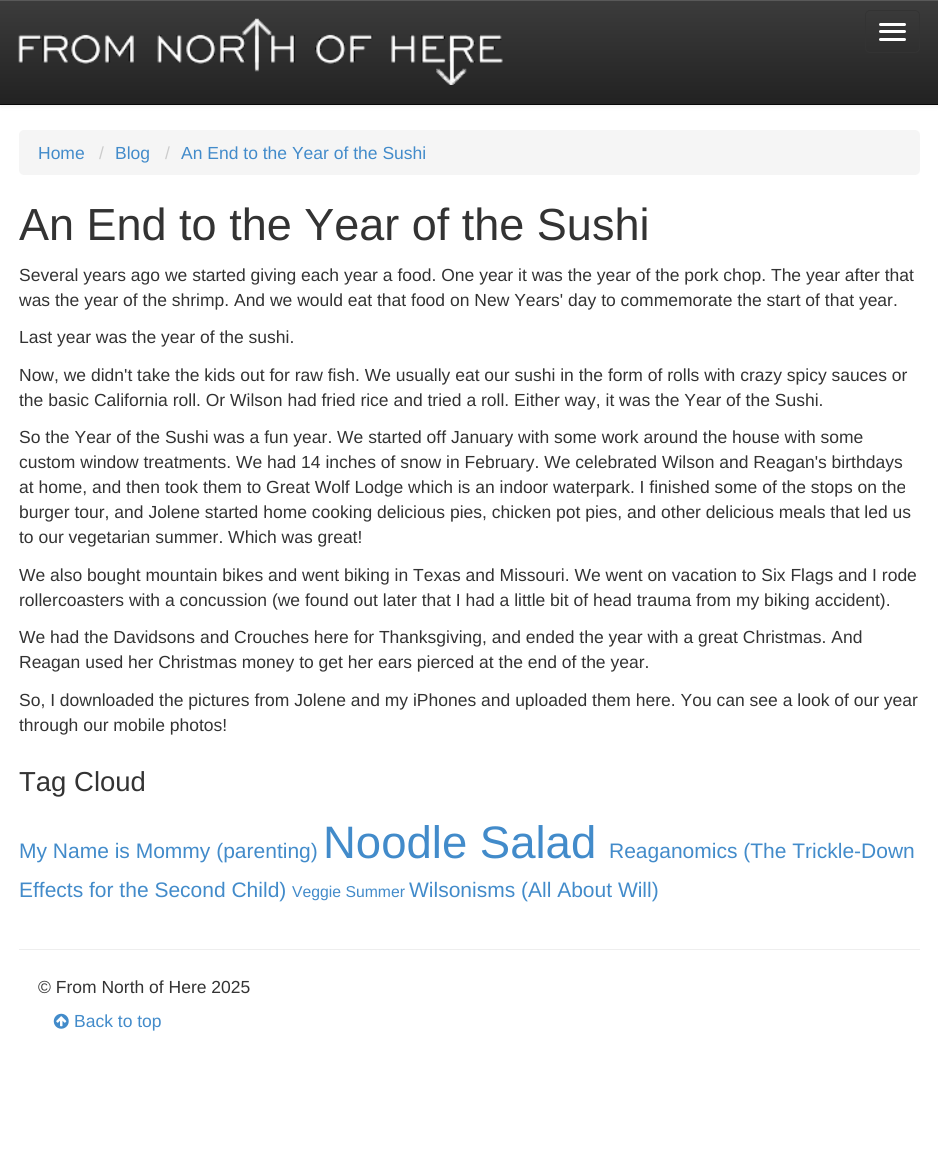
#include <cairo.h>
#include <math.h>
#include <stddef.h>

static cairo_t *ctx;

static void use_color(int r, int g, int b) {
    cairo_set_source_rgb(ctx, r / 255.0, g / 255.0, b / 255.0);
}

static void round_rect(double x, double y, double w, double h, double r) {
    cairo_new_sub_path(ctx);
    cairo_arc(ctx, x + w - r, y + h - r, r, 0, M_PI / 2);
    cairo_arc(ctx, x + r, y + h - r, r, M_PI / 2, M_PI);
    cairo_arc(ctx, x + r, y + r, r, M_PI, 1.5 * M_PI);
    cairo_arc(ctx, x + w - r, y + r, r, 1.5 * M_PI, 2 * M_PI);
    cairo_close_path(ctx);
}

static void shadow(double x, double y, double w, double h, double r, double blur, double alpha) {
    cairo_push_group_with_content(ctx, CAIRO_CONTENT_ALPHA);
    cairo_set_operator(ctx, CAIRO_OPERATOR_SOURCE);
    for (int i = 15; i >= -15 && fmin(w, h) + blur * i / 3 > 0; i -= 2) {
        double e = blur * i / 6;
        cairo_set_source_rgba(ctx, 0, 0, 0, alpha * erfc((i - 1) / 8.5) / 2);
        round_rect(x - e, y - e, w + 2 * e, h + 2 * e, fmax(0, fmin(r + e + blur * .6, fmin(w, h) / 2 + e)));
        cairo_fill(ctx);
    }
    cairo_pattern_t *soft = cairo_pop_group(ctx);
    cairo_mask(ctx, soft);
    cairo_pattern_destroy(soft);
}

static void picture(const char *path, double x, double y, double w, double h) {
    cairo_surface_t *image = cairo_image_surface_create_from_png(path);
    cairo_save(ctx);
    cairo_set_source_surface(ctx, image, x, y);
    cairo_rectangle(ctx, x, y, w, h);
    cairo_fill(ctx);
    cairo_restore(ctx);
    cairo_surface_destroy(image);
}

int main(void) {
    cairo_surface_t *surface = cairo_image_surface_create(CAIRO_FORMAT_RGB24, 938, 1172);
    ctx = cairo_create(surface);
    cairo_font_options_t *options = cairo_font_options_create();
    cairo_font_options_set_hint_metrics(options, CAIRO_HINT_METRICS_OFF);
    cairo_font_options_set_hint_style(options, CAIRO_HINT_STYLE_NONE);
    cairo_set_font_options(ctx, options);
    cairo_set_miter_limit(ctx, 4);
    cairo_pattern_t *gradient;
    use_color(255, 255, 255);
    cairo_paint(ctx);
    use_color(0, 0, 0);
    shadow(0, 1, 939, 105, 0, 3, 0.07);
    gradient = cairo_pattern_create_linear(469, 0, 469, 104);
    cairo_pattern_add_color_stop_rgba(gradient, 0, 0.235, 0.235, 0.235, 1);
    cairo_pattern_add_color_stop_rgba(gradient, 1, 0.133, 0.133, 0.133, 1);
    cairo_set_source(ctx, gradient);
    cairo_pattern_destroy(gradient);
    cairo_rectangle(ctx, 0, 1, 938, 103);
    cairo_fill(ctx);
    use_color(89, 89, 89);
    cairo_rectangle(ctx, 0, 0, 938, 1);
    cairo_fill(ctx);
    use_color(8, 8, 8);
    cairo_rectangle(ctx, 0, 104, 938, 1);
    cairo_fill(ctx);
    picture("img1.png", 18, 18, 485, 67);
    round_rect(865.5, 10.5, 54, 42, 4.5);
    use_color(51, 51, 51);
    cairo_set_line_width(ctx, 1);
    cairo_stroke(ctx);
    use_color(255, 255, 255);
    round_rect(879, 23, 27, 3, 1.5);
    cairo_fill(ctx);
    round_rect(879, 30, 27, 3, 1.5);
    cairo_fill(ctx);
    round_rect(879, 38, 27, 3, 1.5);
    cairo_fill(ctx);
    use_color(245, 245, 245);
    round_rect(19, 130, 901, 45, 5);
    cairo_fill(ctx);
    cairo_select_font_face(ctx, "Liberation Sans", CAIRO_FONT_SLANT_NORMAL, CAIRO_FONT_WEIGHT_NORMAL);
    cairo_set_font_size(ctx, 17.5);
    use_color(66, 139, 202);
    cairo_move_to(ctx, 38, 159);
    cairo_show_text(ctx, "Home");
    use_color(204, 204, 204);
    cairo_move_to(ctx, 99, 159);
    cairo_show_text(ctx, "/");
    use_color(66, 139, 202);
    cairo_move_to(ctx, 115, 159);
    cairo_show_text(ctx, "Blog");
    use_color(204, 204, 204);
    cairo_move_to(ctx, 165, 159);
    cairo_show_text(ctx, "/");
    use_color(66, 139, 202);
    cairo_move_to(ctx, 181, 159);
    cairo_show_text(ctx, "An End to the Year of the Sushi");
    cairo_set_font_size(ctx, 45);
    use_color(51, 51, 51);
    cairo_move_to(ctx, 19, 240);
    cairo_show_text(ctx, "An End to the Year of the Sushi");
    cairo_set_font_size(ctx, 17.5);
    cairo_move_to(ctx, 19, 281);
    cairo_show_text(ctx, "Several years ago we started giving each year a food. One year it was the year of the pork chop. The year after that");
    cairo_move_to(ctx, 19, 306);
    cairo_show_text(ctx, "was the year of the shrimp. And we would eat that food on New Years' day to commemorate the start of that year.");
    cairo_move_to(ctx, 19, 343);
    cairo_show_text(ctx, "Last year was the year of the sushi.");
    cairo_move_to(ctx, 19, 381);
    cairo_show_text(ctx, "Now, we didn't take the kids out for raw fish. We usually eat our sushi in the form of rolls with crazy spicy sauces or");
    cairo_move_to(ctx, 19, 406);
    cairo_show_text(ctx, "the basic California roll. Or Wilson had fried rice and tried a roll. Either way, it was the Year of the Sushi.");
    cairo_move_to(ctx, 19, 443);
    cairo_show_text(ctx, "So the Year of the Sushi was a fun year. We started off January with some work around the house with some");
    cairo_move_to(ctx, 19, 468);
    cairo_show_text(ctx, "custom window treatments. We had 14 inches of snow in February. We celebrated Wilson and Reagan's birthdays");
    cairo_move_to(ctx, 19, 493);
    cairo_show_text(ctx, "at home, and then took them to Great Wolf Lodge which is an indoor waterpark. I finished some of the stops on the");
    cairo_move_to(ctx, 19, 518);
    cairo_show_text(ctx, "burger tour, and Jolene started home cooking delicious pies, chicken pot pies, and other delicious meals that led us");
    cairo_move_to(ctx, 19, 543);
    cairo_show_text(ctx, "to our vegetarian summer. Which was great!");
    cairo_move_to(ctx, 19, 581);
    cairo_show_text(ctx, "We also bought mountain bikes and went biking in Texas and Missouri. We went on vacation to Six Flags and I rode");
    cairo_move_to(ctx, 19, 606);
    cairo_show_text(ctx, "rollercoasters with a concussion (we found out later that I had a little bit of head trauma from my biking accident).");
    cairo_move_to(ctx, 19, 643);
    cairo_show_text(ctx, "We had the Davidsons and Crouches here for Thanksgiving, and ended the year with a great Christmas. And");
    cairo_move_to(ctx, 19, 668);
    cairo_show_text(ctx, "Reagan used her Christmas money to get her ears pierced at the end of the year.");
    cairo_move_to(ctx, 19, 706);
    cairo_show_text(ctx, "So, I downloaded the pictures from Jolene and my iPhones and uploaded them here. You can see a look of our year");
    cairo_move_to(ctx, 19, 731);
    cairo_show_text(ctx, "through our mobile photos!");
    cairo_set_font_size(ctx, 27.5);
    cairo_move_to(ctx, 19, 791);
    cairo_show_text(ctx, "Tag Cloud");
    cairo_set_font_size(ctx, 21);
    use_color(66, 139, 202);
    cairo_move_to(ctx, 19, 858);
    cairo_show_text(ctx, "My Name is Mommy (parenting)");
    cairo_set_font_size(ctx, 45.5);
    cairo_move_to(ctx, 323, 858);
    cairo_show_text(ctx, "Noodle Salad");
    cairo_set_font_size(ctx, 21);
    cairo_move_to(ctx, 609, 858);
    cairo_show_text(ctx, "Reaganomics (The Trickle-Down");
    cairo_move_to(ctx, 19, 897);
    cairo_show_text(ctx, "Effects for the Second Child)");
    cairo_set_font_size(ctx, 15.75);
    cairo_move_to(ctx, 292, 897);
    cairo_show_text(ctx, "Veggie Summer");
    cairo_set_font_size(ctx, 21);
    cairo_move_to(ctx, 409, 897);
    cairo_show_text(ctx, "Wilsonisms (All About Will)");
    use_color(238, 238, 238);
    cairo_rectangle(ctx, 19, 949, 901, 1);
    cairo_fill(ctx);
    cairo_set_font_size(ctx, 17.5);
    use_color(51, 51, 51);
    cairo_move_to(ctx, 38, 993);
    cairo_show_text(ctx, "© From North of Here 2025");
    picture("img2.png", 53, 1013, 16, 16);
    use_color(66, 139, 202);
    cairo_move_to(ctx, 74, 1027);
    cairo_show_text(ctx, "Back to top");
    cairo_surface_write_to_png(surface, "result.png");
    cairo_font_options_destroy(options);
    cairo_destroy(ctx);
    cairo_surface_destroy(surface);
    return 0;
}
